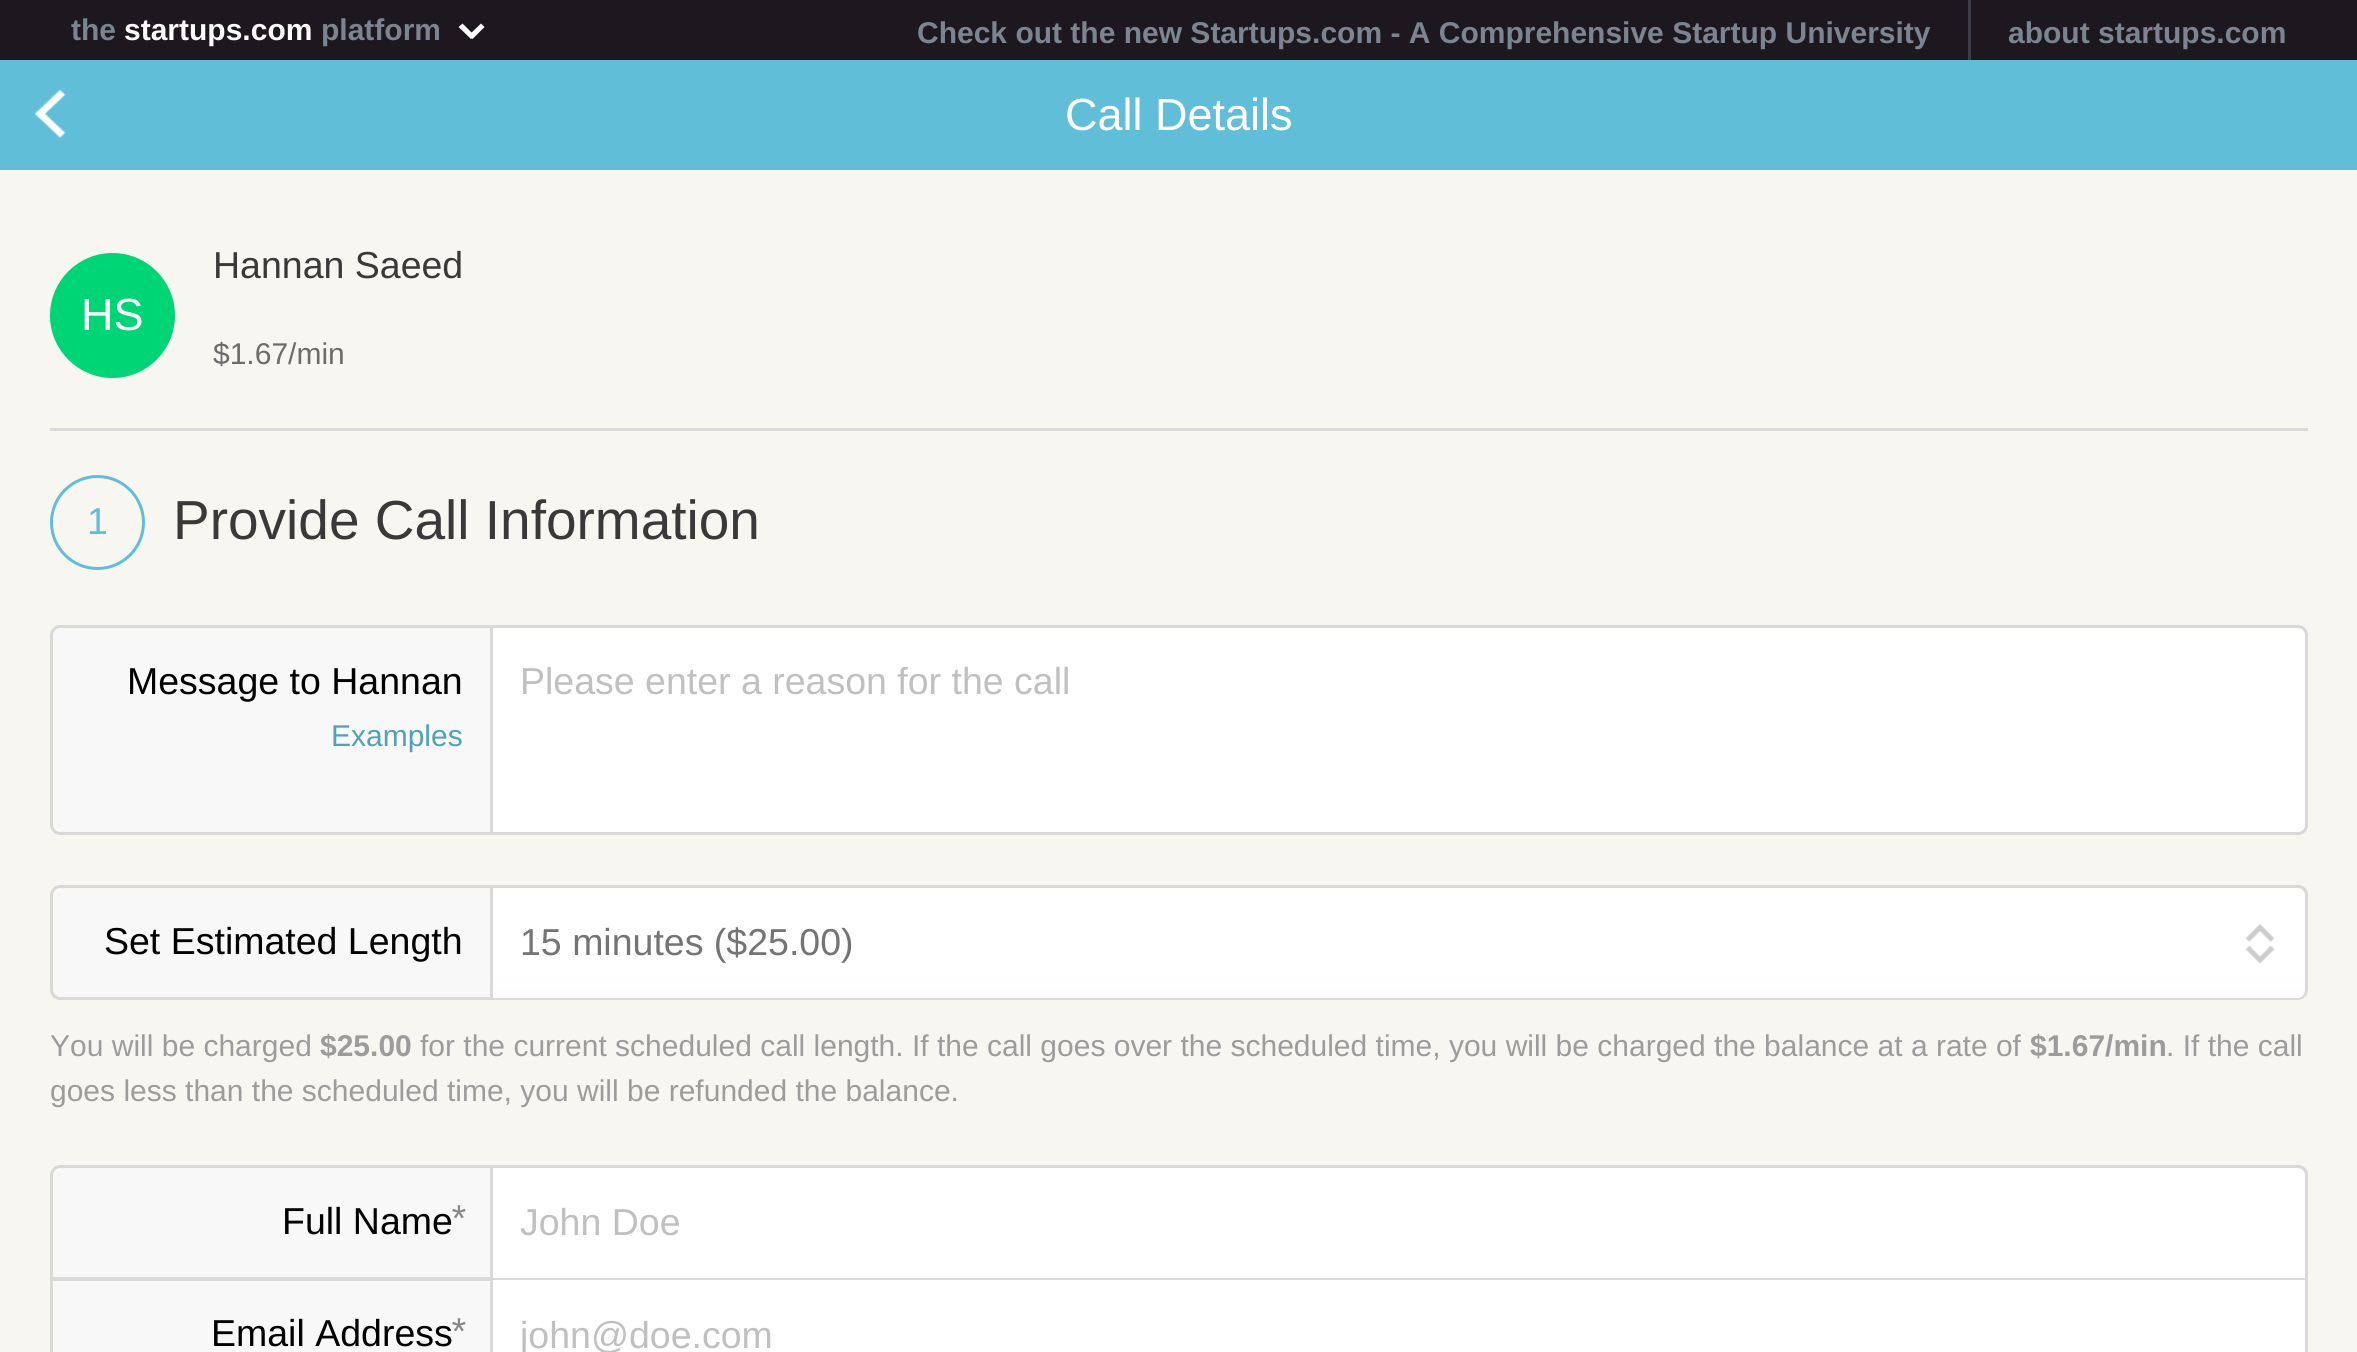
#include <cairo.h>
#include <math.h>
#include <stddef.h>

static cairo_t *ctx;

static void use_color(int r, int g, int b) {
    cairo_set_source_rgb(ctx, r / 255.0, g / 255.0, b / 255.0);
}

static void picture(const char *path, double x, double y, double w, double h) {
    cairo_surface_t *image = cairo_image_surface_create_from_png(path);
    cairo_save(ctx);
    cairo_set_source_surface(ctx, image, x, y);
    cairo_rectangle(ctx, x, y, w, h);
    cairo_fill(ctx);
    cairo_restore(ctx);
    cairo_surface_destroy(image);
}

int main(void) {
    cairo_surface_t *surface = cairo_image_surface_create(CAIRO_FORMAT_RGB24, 2357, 1352);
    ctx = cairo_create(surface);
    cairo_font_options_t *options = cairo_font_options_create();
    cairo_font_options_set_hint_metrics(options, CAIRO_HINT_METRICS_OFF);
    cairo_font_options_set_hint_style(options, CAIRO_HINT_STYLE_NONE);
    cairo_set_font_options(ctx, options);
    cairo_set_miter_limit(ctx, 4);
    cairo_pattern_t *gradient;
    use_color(29, 24, 31);
    cairo_paint(ctx);
    cairo_select_font_face(ctx, "Liberation Sans", CAIRO_FONT_SLANT_NORMAL, CAIRO_FONT_WEIGHT_BOLD);
    cairo_set_font_size(ctx, 30);
    use_color(123, 132, 144);
    cairo_move_to(ctx, 71, 40);
    cairo_show_text(ctx, "the");
    use_color(255, 255, 255);
    cairo_move_to(ctx, 124, 40);
    cairo_show_text(ctx, "startups.com");
    use_color(123, 132, 144);
    cairo_move_to(ctx, 321, 40);
    cairo_show_text(ctx, "platform");
    use_color(255, 255, 255);
    cairo_new_path(ctx);
    cairo_move_to(ctx, 474.5, 35.5);
    cairo_line_to(ctx, 471, 39);
    cairo_line_to(ctx, 458.5, 27);
    cairo_line_to(ctx, 462.5, 23.5);
    cairo_close_path(ctx);
    cairo_fill(ctx);
    cairo_new_path(ctx);
    cairo_move_to(ctx, 472.5, 39);
    cairo_line_to(ctx, 468.5, 35.5);
    cairo_line_to(ctx, 481, 23.5);
    cairo_line_to(ctx, 484.5, 27);
    cairo_close_path(ctx);
    cairo_fill(ctx);
    use_color(62, 61, 71);
    cairo_rectangle(ctx, 1968, 0, 3, 60);
    cairo_fill(ctx);
    use_color(123, 132, 144);
    cairo_move_to(ctx, 917, 43);
    cairo_show_text(ctx, "Check out the new Startups.com - A Comprehensive Startup University");
    cairo_move_to(ctx, 2008, 43);
    cairo_show_text(ctx, "about startups.com");
    use_color(97, 190, 217);
    cairo_rectangle(ctx, 0, 60, 2357, 110);
    cairo_fill(ctx);
    picture("img1.png", 34, 89, 32, 49);
    cairo_select_font_face(ctx, "Liberation Sans", CAIRO_FONT_SLANT_NORMAL, CAIRO_FONT_WEIGHT_NORMAL);
    cairo_set_font_size(ctx, 45);
    use_color(255, 255, 255);
    cairo_move_to(ctx, 1065, 130);
    cairo_show_text(ctx, "Call Details");
    use_color(247, 246, 241);
    cairo_rectangle(ctx, 0, 170, 2357, 1182);
    cairo_fill(ctx);
    use_color(217, 217, 217);
    cairo_rectangle(ctx, 50, 428, 2258, 3);
    cairo_fill(ctx);
    cairo_set_font_size(ctx, 37.5);
    use_color(57, 57, 57);
    cairo_move_to(ctx, 213, 278);
    cairo_show_text(ctx, "Hannan Saeed");
    use_color(0, 213, 117);
    cairo_new_path(ctx);
    cairo_arc(ctx, 112.5, 315.5, 62.5, 0, 2 * M_PI);
    cairo_fill(ctx);
    cairo_set_font_size(ctx, 45);
    use_color(255, 255, 255);
    cairo_move_to(ctx, 81, 330);
    cairo_show_text(ctx, "HS");
    cairo_set_font_size(ctx, 30);
    use_color(108, 108, 108);
    cairo_move_to(ctx, 213, 364);
    cairo_show_text(ctx, "$1.67/min");
    cairo_new_path(ctx);
    cairo_arc(ctx, 97.5, 522.5, 46, 0, 2 * M_PI);
    use_color(97, 190, 217);
    cairo_set_line_width(ctx, 3);
    cairo_stroke(ctx);
    cairo_set_font_size(ctx, 37.5);
    cairo_move_to(ctx, 87, 534);
    cairo_show_text(ctx, "1");
    cairo_set_font_size(ctx, 55);
    use_color(57, 57, 57);
    cairo_move_to(ctx, 173, 539);
    cairo_show_text(ctx, "Provide Call Information");
    use_color(255, 255, 255);
    cairo_new_path(ctx);
    cairo_move_to(ctx, 493, 628);
    cairo_line_to(ctx, 2297, 628);
    cairo_curve_to(ctx, 2301.5, 628, 2305, 631.5, 2305, 636);
    cairo_line_to(ctx, 2305, 825);
    cairo_curve_to(ctx, 2305, 829.5, 2301.5, 833, 2297, 833);
    cairo_line_to(ctx, 493, 833);
    cairo_close_path(ctx);
    cairo_fill(ctx);
    use_color(217, 217, 217);
    cairo_set_fill_rule(ctx, CAIRO_FILL_RULE_EVEN_ODD);
    cairo_new_path(ctx);
    cairo_move_to(ctx, 492, 625);
    cairo_line_to(ctx, 2298, 625);
    cairo_curve_to(ctx, 2303, 625, 2308, 629, 2308, 635);
    cairo_line_to(ctx, 2308, 825);
    cairo_curve_to(ctx, 2308, 831, 2303, 835, 2298, 835);
    cairo_line_to(ctx, 492, 835);
    cairo_close_path(ctx);
    cairo_move_to(ctx, 492, 628);
    cairo_line_to(ctx, 2298, 628);
    cairo_curve_to(ctx, 2302, 628, 2305, 631, 2305, 635);
    cairo_line_to(ctx, 2305, 825);
    cairo_curve_to(ctx, 2305, 829, 2302, 832, 2298, 832);
    cairo_line_to(ctx, 492, 832);
    cairo_close_path(ctx);
    cairo_fill(ctx);
    use_color(248, 248, 248);
    cairo_new_path(ctx);
    cairo_move_to(ctx, 60, 626.5);
    cairo_line_to(ctx, 491.5, 626.5);
    cairo_line_to(ctx, 491.5, 833.5);
    cairo_line_to(ctx, 60, 833.5);
    cairo_curve_to(ctx, 55.5, 833.5, 51.5, 829.5, 51.5, 825);
    cairo_line_to(ctx, 51.5, 635);
    cairo_curve_to(ctx, 51.5, 630.5, 55.5, 626.5, 60, 626.5);
    cairo_close_path(ctx);
    cairo_fill_preserve(ctx);
    use_color(217, 217, 217);
    cairo_stroke(ctx);
    cairo_set_font_size(ctx, 37.5);
    use_color(0, 0, 0);
    cairo_move_to(ctx, 127, 694);
    cairo_show_text(ctx, "Message to Hannan");
    cairo_set_font_size(ctx, 30);
    use_color(82, 161, 184);
    cairo_move_to(ctx, 331, 746);
    cairo_show_text(ctx, "Examples");
    cairo_set_font_size(ctx, 37.5);
    use_color(192, 192, 192);
    cairo_move_to(ctx, 520, 694);
    cairo_show_text(ctx, "Please enter a reason for the call");
    use_color(248, 248, 248);
    cairo_new_path(ctx);
    cairo_move_to(ctx, 60, 886.5);
    cairo_line_to(ctx, 491.5, 886.5);
    cairo_line_to(ctx, 491.5, 998.5);
    cairo_line_to(ctx, 60, 998.5);
    cairo_curve_to(ctx, 55.5, 998.5, 51.5, 994.5, 51.5, 990);
    cairo_line_to(ctx, 51.5, 895);
    cairo_curve_to(ctx, 51.5, 890.5, 55.5, 886.5, 60, 886.5);
    cairo_close_path(ctx);
    cairo_fill_preserve(ctx);
    use_color(217, 217, 217);
    cairo_stroke(ctx);
    use_color(0, 0, 0);
    cairo_move_to(ctx, 104, 954);
    cairo_show_text(ctx, "Set Estimated Length");
    gradient = cairo_pattern_create_linear(1399, 887, 1399, 998);
    cairo_pattern_add_color_stop_rgba(gradient, 0.7, 1, 1, 1, 1);
    cairo_pattern_add_color_stop_rgba(gradient, 1, 0.992, 0.992, 0.992, 1);
    cairo_set_source(ctx, gradient);
    cairo_pattern_destroy(gradient);
    cairo_new_path(ctx);
    cairo_move_to(ctx, 493, 888);
    cairo_line_to(ctx, 2297, 888);
    cairo_curve_to(ctx, 2301.5, 888, 2305, 891.5, 2305, 896);
    cairo_line_to(ctx, 2305, 990);
    cairo_curve_to(ctx, 2305, 994.5, 2301.5, 998, 2297, 998);
    cairo_line_to(ctx, 493, 998);
    cairo_close_path(ctx);
    cairo_fill(ctx);
    use_color(217, 217, 217);
    cairo_new_path(ctx);
    cairo_move_to(ctx, 492, 885);
    cairo_line_to(ctx, 2298, 885);
    cairo_curve_to(ctx, 2303, 885, 2308, 889, 2308, 895);
    cairo_line_to(ctx, 2308, 990);
    cairo_curve_to(ctx, 2308, 996, 2303, 1000, 2298, 1000);
    cairo_line_to(ctx, 492, 1000);
    cairo_close_path(ctx);
    cairo_move_to(ctx, 492, 888);
    cairo_line_to(ctx, 2298, 888);
    cairo_curve_to(ctx, 2302, 888, 2305, 891, 2305, 895);
    cairo_line_to(ctx, 2305, 990);
    cairo_curve_to(ctx, 2305, 994, 2302, 998, 2298, 998);
    cairo_line_to(ctx, 492, 998);
    cairo_close_path(ctx);
    cairo_fill(ctx);
    use_color(116, 116, 116);
    cairo_move_to(ctx, 520, 955);
    cairo_show_text(ctx, "15 minutes ($25.00)");
    picture("img2.png", 2245, 923, 30, 41);
    cairo_set_font_size(ctx, 30);
    use_color(156, 156, 156);
    cairo_move_to(ctx, 50, 1056);
    cairo_show_text(ctx, "You will be charged");
    cairo_select_font_face(ctx, "Liberation Sans", CAIRO_FONT_SLANT_NORMAL, CAIRO_FONT_WEIGHT_BOLD);
    cairo_move_to(ctx, 320, 1056);
    cairo_show_text(ctx, "$25.00");
    cairo_select_font_face(ctx, "Liberation Sans", CAIRO_FONT_SLANT_NORMAL, CAIRO_FONT_WEIGHT_NORMAL);
    cairo_move_to(ctx, 420, 1056);
    cairo_show_text(ctx, "for the current scheduled call length. If the call goes over the scheduled time, you will be charged the balance at a rate of");
    cairo_select_font_face(ctx, "Liberation Sans", CAIRO_FONT_SLANT_NORMAL, CAIRO_FONT_WEIGHT_BOLD);
    cairo_move_to(ctx, 2030, 1056);
    cairo_show_text(ctx, "$1.67/min");
    cairo_select_font_face(ctx, "Liberation Sans", CAIRO_FONT_SLANT_NORMAL, CAIRO_FONT_WEIGHT_NORMAL);
    cairo_move_to(ctx, 2166, 1056);
    cairo_show_text(ctx, ". If the call");
    cairo_move_to(ctx, 50, 1101);
    cairo_show_text(ctx, "goes less than the scheduled time, you will be refunded the balance.");
    use_color(255, 255, 255);
    cairo_new_path(ctx);
    cairo_move_to(ctx, 493, 1168);
    cairo_line_to(ctx, 2297, 1168);
    cairo_curve_to(ctx, 2301.5, 1168, 2305, 1171.5, 2305, 1176);
    cairo_line_to(ctx, 2305, 1278);
    cairo_line_to(ctx, 493, 1278);
    cairo_close_path(ctx);
    cairo_fill(ctx);
    use_color(217, 217, 217);
    cairo_new_path(ctx);
    cairo_move_to(ctx, 492, 1165);
    cairo_line_to(ctx, 2298, 1165);
    cairo_curve_to(ctx, 2303, 1165, 2308, 1169, 2308, 1175);
    cairo_line_to(ctx, 2308, 1280);
    cairo_line_to(ctx, 492, 1280);
    cairo_close_path(ctx);
    cairo_move_to(ctx, 492, 1168);
    cairo_line_to(ctx, 2298, 1168);
    cairo_curve_to(ctx, 2302, 1168, 2305, 1171, 2305, 1175);
    cairo_line_to(ctx, 2305, 1278);
    cairo_line_to(ctx, 492, 1278);
    cairo_close_path(ctx);
    cairo_fill(ctx);
    use_color(248, 248, 248);
    cairo_new_path(ctx);
    cairo_move_to(ctx, 60, 1166.5);
    cairo_line_to(ctx, 491.5, 1166.5);
    cairo_line_to(ctx, 491.5, 1278.5);
    cairo_line_to(ctx, 51.5, 1278.5);
    cairo_line_to(ctx, 51.5, 1175);
    cairo_curve_to(ctx, 51.5, 1170.5, 55.5, 1166.5, 60, 1166.5);
    cairo_close_path(ctx);
    cairo_fill_preserve(ctx);
    use_color(217, 217, 217);
    cairo_stroke(ctx);
    cairo_set_font_size(ctx, 37.5);
    use_color(0, 0, 0);
    cairo_move_to(ctx, 282, 1234);
    cairo_show_text(ctx, "Full Name");
    cairo_select_font_face(ctx, "Liberation Sans", CAIRO_FONT_SLANT_ITALIC, CAIRO_FONT_WEIGHT_NORMAL);
    use_color(134, 134, 134);
    cairo_move_to(ctx, 450, 1231);
    cairo_show_text(ctx, "*");
    cairo_select_font_face(ctx, "Liberation Sans", CAIRO_FONT_SLANT_NORMAL, CAIRO_FONT_WEIGHT_NORMAL);
    use_color(192, 192, 192);
    cairo_move_to(ctx, 520, 1235);
    cairo_show_text(ctx, "John Doe");
    use_color(255, 255, 255);
    cairo_rectangle(ctx, 493, 1280, 1812, 72);
    cairo_fill(ctx);
    use_color(217, 217, 217);
    cairo_new_path(ctx);
    cairo_move_to(ctx, 492, 1278);
    cairo_line_to(ctx, 2308, 1278);
    cairo_line_to(ctx, 2308, 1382);
    cairo_curve_to(ctx, 2308, 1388, 2303, 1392, 2298, 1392);
    cairo_line_to(ctx, 492, 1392);
    cairo_close_path(ctx);
    cairo_move_to(ctx, 492, 1280);
    cairo_line_to(ctx, 2305, 1280);
    cairo_line_to(ctx, 2305, 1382);
    cairo_curve_to(ctx, 2305, 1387, 2302, 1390, 2298, 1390);
    cairo_line_to(ctx, 492, 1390);
    cairo_close_path(ctx);
    cairo_fill(ctx);
    use_color(248, 248, 248);
    cairo_rectangle(ctx, 51.5, 1279.5, 440, 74);
    cairo_fill_preserve(ctx);
    use_color(217, 217, 217);
    cairo_stroke(ctx);
    use_color(0, 0, 0);
    cairo_move_to(ctx, 211, 1346);
    cairo_show_text(ctx, "Email Address");
    cairo_select_font_face(ctx, "Liberation Sans", CAIRO_FONT_SLANT_ITALIC, CAIRO_FONT_WEIGHT_NORMAL);
    use_color(134, 134, 134);
    cairo_move_to(ctx, 450, 1344);
    cairo_show_text(ctx, "*");
    cairo_select_font_face(ctx, "Liberation Sans", CAIRO_FONT_SLANT_NORMAL, CAIRO_FONT_WEIGHT_NORMAL);
    use_color(192, 192, 192);
    cairo_move_to(ctx, 520, 1348);
    cairo_show_text(ctx, "john@doe.com");
    cairo_surface_write_to_png(surface, "result.png");
    cairo_font_options_destroy(options);
    cairo_destroy(ctx);
    cairo_surface_destroy(surface);
    return 0;
}
